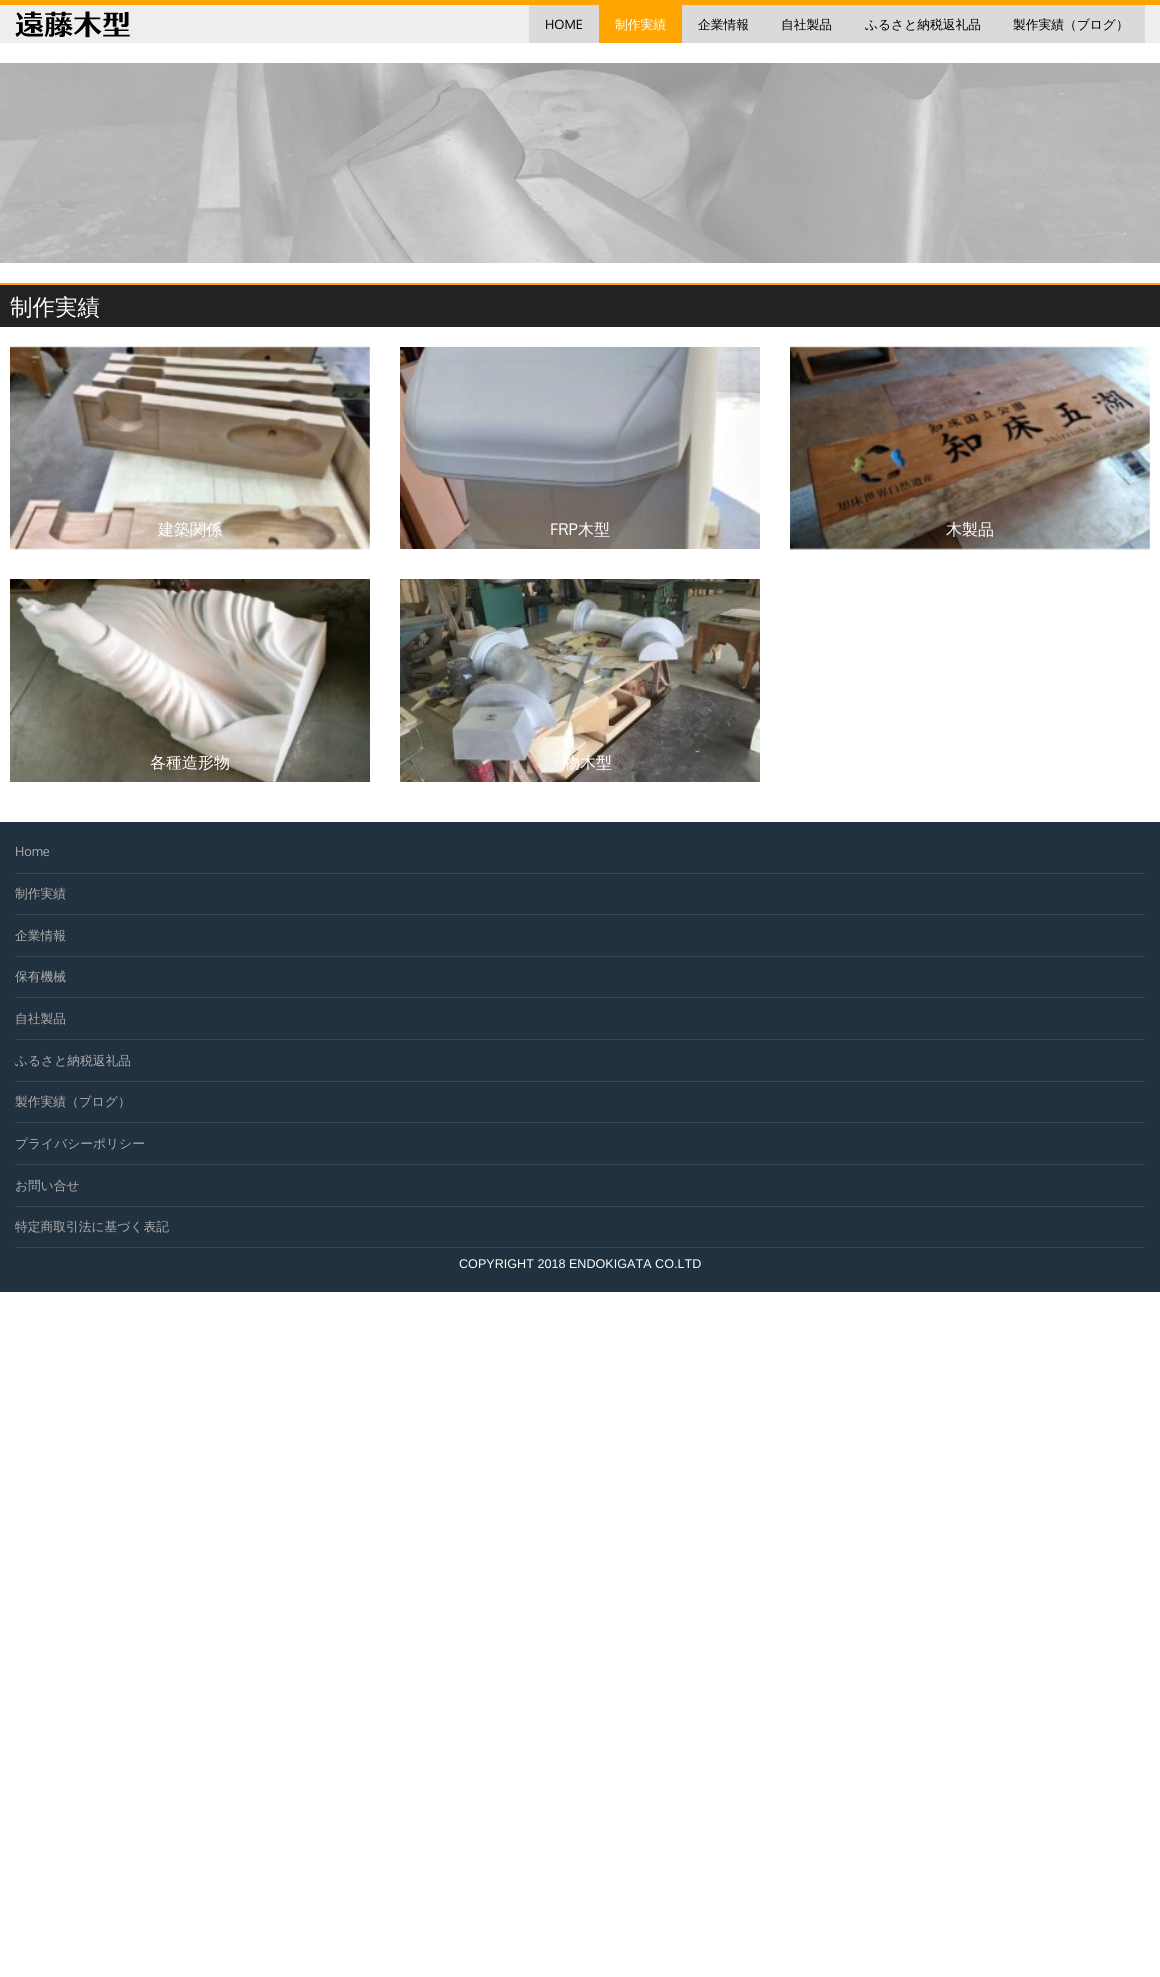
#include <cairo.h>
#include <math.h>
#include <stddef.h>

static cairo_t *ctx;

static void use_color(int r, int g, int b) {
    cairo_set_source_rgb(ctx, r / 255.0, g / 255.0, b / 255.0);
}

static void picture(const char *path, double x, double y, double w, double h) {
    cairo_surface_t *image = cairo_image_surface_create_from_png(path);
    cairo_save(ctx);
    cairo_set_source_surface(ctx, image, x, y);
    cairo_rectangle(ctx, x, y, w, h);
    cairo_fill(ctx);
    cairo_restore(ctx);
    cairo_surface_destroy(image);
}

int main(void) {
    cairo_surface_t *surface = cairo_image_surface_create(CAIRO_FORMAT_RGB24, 1160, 1977);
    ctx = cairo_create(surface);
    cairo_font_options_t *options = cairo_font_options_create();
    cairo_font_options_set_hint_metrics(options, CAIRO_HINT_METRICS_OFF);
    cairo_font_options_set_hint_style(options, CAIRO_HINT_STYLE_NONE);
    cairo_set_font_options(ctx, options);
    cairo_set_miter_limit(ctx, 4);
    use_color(255, 255, 255);
    cairo_paint(ctx);
    use_color(255, 165, 0);
    cairo_rectangle(ctx, 0, 0, 1160, 5);
    cairo_fill(ctx);
    use_color(238, 238, 238);
    cairo_rectangle(ctx, 0, 5, 1160, 38);
    cairo_fill(ctx);
    picture("img1.png", 15, 11, 115, 27);
    use_color(218, 218, 218);
    cairo_rectangle(ctx, 529, 5, 70, 38);
    cairo_fill(ctx);
    cairo_select_font_face(ctx, "Oxygen", CAIRO_FONT_SLANT_NORMAL, CAIRO_FONT_WEIGHT_NORMAL);
    cairo_set_font_size(ctx, 12.75);
    use_color(0, 0, 0);
    cairo_move_to(ctx, 545, 29);
    cairo_show_text(ctx, "HOME");
    use_color(255, 165, 0);
    cairo_rectangle(ctx, 599, 5, 83, 38);
    cairo_fill(ctx);
    cairo_select_font_face(ctx, "WenQuanYi Zen Hei Medium", CAIRO_FONT_SLANT_NORMAL, CAIRO_FONT_WEIGHT_NORMAL);
    use_color(255, 255, 255);
    cairo_move_to(ctx, 615, 29);
    cairo_show_text(ctx, "制作実績");
    use_color(218, 218, 218);
    cairo_rectangle(ctx, 682, 5, 463, 38);
    cairo_fill(ctx);
    use_color(0, 0, 0);
    cairo_move_to(ctx, 698, 29);
    cairo_show_text(ctx, "企業情報");
    cairo_move_to(ctx, 781, 29);
    cairo_show_text(ctx, "自社製品");
    cairo_move_to(ctx, 865, 29);
    cairo_show_text(ctx, "ふるさと納税返礼品");
    cairo_move_to(ctx, 1013, 29);
    cairo_show_text(ctx, "製作実績（ブログ）");
    picture("img2.png", 0, 63, 1160, 200);
    use_color(34, 34, 34);
    cairo_rectangle(ctx, 0, 285, 1160, 42);
    cairo_fill(ctx);
    use_color(255, 165, 0);
    cairo_rectangle(ctx, 0, 283, 1160, 2);
    cairo_fill(ctx);
    cairo_set_font_size(ctx, 22.5);
    use_color(255, 255, 255);
    cairo_move_to(ctx, 10, 315);
    cairo_show_text(ctx, "制作実績");
    picture("img3.png", 10, 346, 360, 204);
    cairo_set_font_size(ctx, 16);
    cairo_move_to(ctx, 158, 535);
    cairo_show_text(ctx, "建築関係");
    picture("img4.png", 400, 347, 360, 202);
    cairo_select_font_face(ctx, "Oxygen", CAIRO_FONT_SLANT_NORMAL, CAIRO_FONT_WEIGHT_NORMAL);
    cairo_move_to(ctx, 550, 535);
    cairo_show_text(ctx, "FRP");
    cairo_select_font_face(ctx, "WenQuanYi Zen Hei Medium", CAIRO_FONT_SLANT_NORMAL, CAIRO_FONT_WEIGHT_NORMAL);
    cairo_move_to(ctx, 578, 535);
    cairo_show_text(ctx, "木型");
    picture("img5.png", 790, 346, 360, 204);
    cairo_move_to(ctx, 946, 535);
    cairo_show_text(ctx, "木製品");
    picture("img6.png", 10, 579, 360, 203);
    cairo_move_to(ctx, 150, 768);
    cairo_show_text(ctx, "各種造形物");
    picture("img7.png", 400, 579, 360, 203);
    cairo_move_to(ctx, 564, 768);
    cairo_show_text(ctx, "物木型");
    use_color(34, 49, 63);
    cairo_rectangle(ctx, 0, 822, 1160, 470);
    cairo_fill(ctx);
    use_color(56, 70, 82);
    cairo_rectangle(ctx, 15, 873, 1130, 1);
    cairo_fill(ctx);
    cairo_select_font_face(ctx, "Oxygen", CAIRO_FONT_SLANT_NORMAL, CAIRO_FONT_WEIGHT_NORMAL);
    cairo_set_font_size(ctx, 12.75);
    use_color(173, 173, 173);
    cairo_move_to(ctx, 15, 856);
    cairo_show_text(ctx, "Home");
    use_color(56, 70, 82);
    cairo_rectangle(ctx, 15, 914, 1130, 1);
    cairo_fill(ctx);
    cairo_select_font_face(ctx, "WenQuanYi Zen Hei Medium", CAIRO_FONT_SLANT_NORMAL, CAIRO_FONT_WEIGHT_NORMAL);
    use_color(173, 173, 173);
    cairo_move_to(ctx, 15, 898);
    cairo_show_text(ctx, "制作実績");
    use_color(56, 70, 82);
    cairo_rectangle(ctx, 15, 956, 1130, 1);
    cairo_fill(ctx);
    use_color(173, 173, 173);
    cairo_move_to(ctx, 15, 940);
    cairo_show_text(ctx, "企業情報");
    use_color(56, 70, 82);
    cairo_rectangle(ctx, 15, 997, 1130, 1);
    cairo_fill(ctx);
    use_color(173, 173, 173);
    cairo_move_to(ctx, 15, 981);
    cairo_show_text(ctx, "保有機械");
    use_color(56, 70, 82);
    cairo_rectangle(ctx, 15, 1039, 1130, 1);
    cairo_fill(ctx);
    use_color(173, 173, 173);
    cairo_move_to(ctx, 15, 1023);
    cairo_show_text(ctx, "自社製品");
    use_color(56, 70, 82);
    cairo_rectangle(ctx, 15, 1081, 1130, 1);
    cairo_fill(ctx);
    use_color(173, 173, 173);
    cairo_move_to(ctx, 15, 1065);
    cairo_show_text(ctx, "ふるさと納税返礼品");
    use_color(56, 70, 82);
    cairo_rectangle(ctx, 15, 1122, 1130, 1);
    cairo_fill(ctx);
    use_color(173, 173, 173);
    cairo_move_to(ctx, 15, 1106);
    cairo_show_text(ctx, "製作実績（ブログ）");
    use_color(56, 70, 82);
    cairo_rectangle(ctx, 15, 1164, 1130, 1);
    cairo_fill(ctx);
    use_color(173, 173, 173);
    cairo_move_to(ctx, 15, 1148);
    cairo_show_text(ctx, "プライバシーポリシー");
    use_color(56, 70, 82);
    cairo_rectangle(ctx, 15, 1206, 1130, 1);
    cairo_fill(ctx);
    use_color(173, 173, 173);
    cairo_move_to(ctx, 15, 1190);
    cairo_show_text(ctx, "お問い合せ");
    use_color(56, 70, 82);
    cairo_rectangle(ctx, 15, 1247, 1130, 1);
    cairo_fill(ctx);
    use_color(173, 173, 173);
    cairo_move_to(ctx, 15, 1231);
    cairo_show_text(ctx, "特定商取引法に基づく表記");
    cairo_select_font_face(ctx, "Liberation Sans", CAIRO_FONT_SLANT_NORMAL, CAIRO_FONT_WEIGHT_NORMAL);
    cairo_set_font_size(ctx, 12.6);
    use_color(255, 255, 255);
    cairo_move_to(ctx, 459, 1268);
    cairo_show_text(ctx, "COPYRIGHT 2018 ENDOKIGATA CO.LTD");
    cairo_surface_write_to_png(surface, "result.png");
    cairo_font_options_destroy(options);
    cairo_destroy(ctx);
    cairo_surface_destroy(surface);
    return 0;
}
